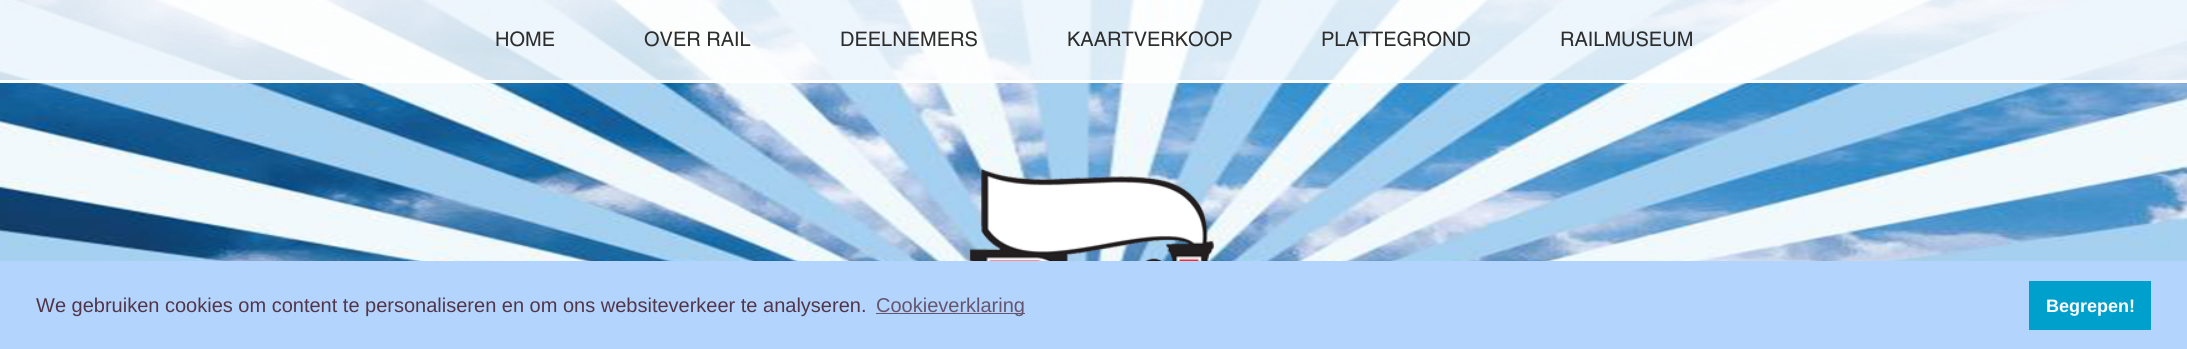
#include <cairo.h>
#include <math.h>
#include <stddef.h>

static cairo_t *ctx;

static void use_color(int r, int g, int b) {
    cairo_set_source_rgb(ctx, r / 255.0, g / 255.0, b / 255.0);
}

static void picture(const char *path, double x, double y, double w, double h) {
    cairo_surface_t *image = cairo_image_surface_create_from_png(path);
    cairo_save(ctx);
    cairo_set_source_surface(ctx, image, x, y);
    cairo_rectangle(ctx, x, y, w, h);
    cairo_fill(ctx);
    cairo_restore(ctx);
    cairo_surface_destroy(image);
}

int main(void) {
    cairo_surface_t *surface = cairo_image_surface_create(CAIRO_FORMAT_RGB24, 2187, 349);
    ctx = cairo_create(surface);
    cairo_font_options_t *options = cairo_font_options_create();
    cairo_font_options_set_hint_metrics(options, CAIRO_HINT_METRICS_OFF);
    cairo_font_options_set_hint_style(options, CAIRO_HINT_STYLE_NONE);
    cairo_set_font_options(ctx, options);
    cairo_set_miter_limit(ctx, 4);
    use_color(255, 255, 255);
    cairo_paint(ctx);
    picture("img1.png", 0, 0, 2187, 261);
    cairo_set_source_rgba(ctx, 1, 1, 1, 0.8);
    cairo_rectangle(ctx, 0, 0, 2187, 80);
    cairo_fill(ctx);
    use_color(255, 255, 255);
    cairo_rectangle(ctx, 0, 80, 2187, 3);
    cairo_fill(ctx);
    cairo_select_font_face(ctx, "Helvetica Medium", CAIRO_FONT_SLANT_NORMAL, CAIRO_FONT_WEIGHT_NORMAL);
    cairo_set_font_size(ctx, 20);
    use_color(45, 45, 45);
    cairo_move_to(ctx, 495, 46);
    cairo_show_text(ctx, "HOME");
    cairo_move_to(ctx, 644, 46);
    cairo_show_text(ctx, "OVER RAIL");
    cairo_move_to(ctx, 840, 46);
    cairo_show_text(ctx, "DEELNEMERS");
    cairo_move_to(ctx, 1067, 46);
    cairo_show_text(ctx, "KAARTVERKOOP");
    cairo_move_to(ctx, 1321, 46);
    cairo_show_text(ctx, "PLATTEGROND");
    cairo_move_to(ctx, 1560, 46);
    cairo_show_text(ctx, "RAILMUSEUM");
    picture("img2.png", 968, 168, 247, 93);
    use_color(179, 212, 252);
    cairo_rectangle(ctx, 0, 261, 2187, 88);
    cairo_fill(ctx);
    cairo_select_font_face(ctx, "Liberation Sans", CAIRO_FONT_SLANT_NORMAL, CAIRO_FONT_WEIGHT_NORMAL);
    use_color(83, 53, 74);
    cairo_move_to(ctx, 36, 312);
    cairo_show_text(ctx, "We gebruiken cookies om content te personaliseren en om ons websiteverkeer te analyseren.");
    use_color(102, 85, 110);
    cairo_rectangle(ctx, 876, 313, 149, 1);
    cairo_fill(ctx);
    cairo_move_to(ctx, 876, 312);
    cairo_show_text(ctx, "Cookieverklaring");
    use_color(0, 160, 205);
    cairo_rectangle(ctx, 2029, 281, 122, 49);
    cairo_fill(ctx);
    cairo_select_font_face(ctx, "Liberation Sans", CAIRO_FONT_SLANT_NORMAL, CAIRO_FONT_WEIGHT_BOLD);
    cairo_set_font_size(ctx, 18);
    use_color(255, 255, 255);
    cairo_move_to(ctx, 2046, 312);
    cairo_show_text(ctx, "Begrepen!");
    cairo_surface_write_to_png(surface, "result.png");
    cairo_font_options_destroy(options);
    cairo_destroy(ctx);
    cairo_surface_destroy(surface);
    return 0;
}
